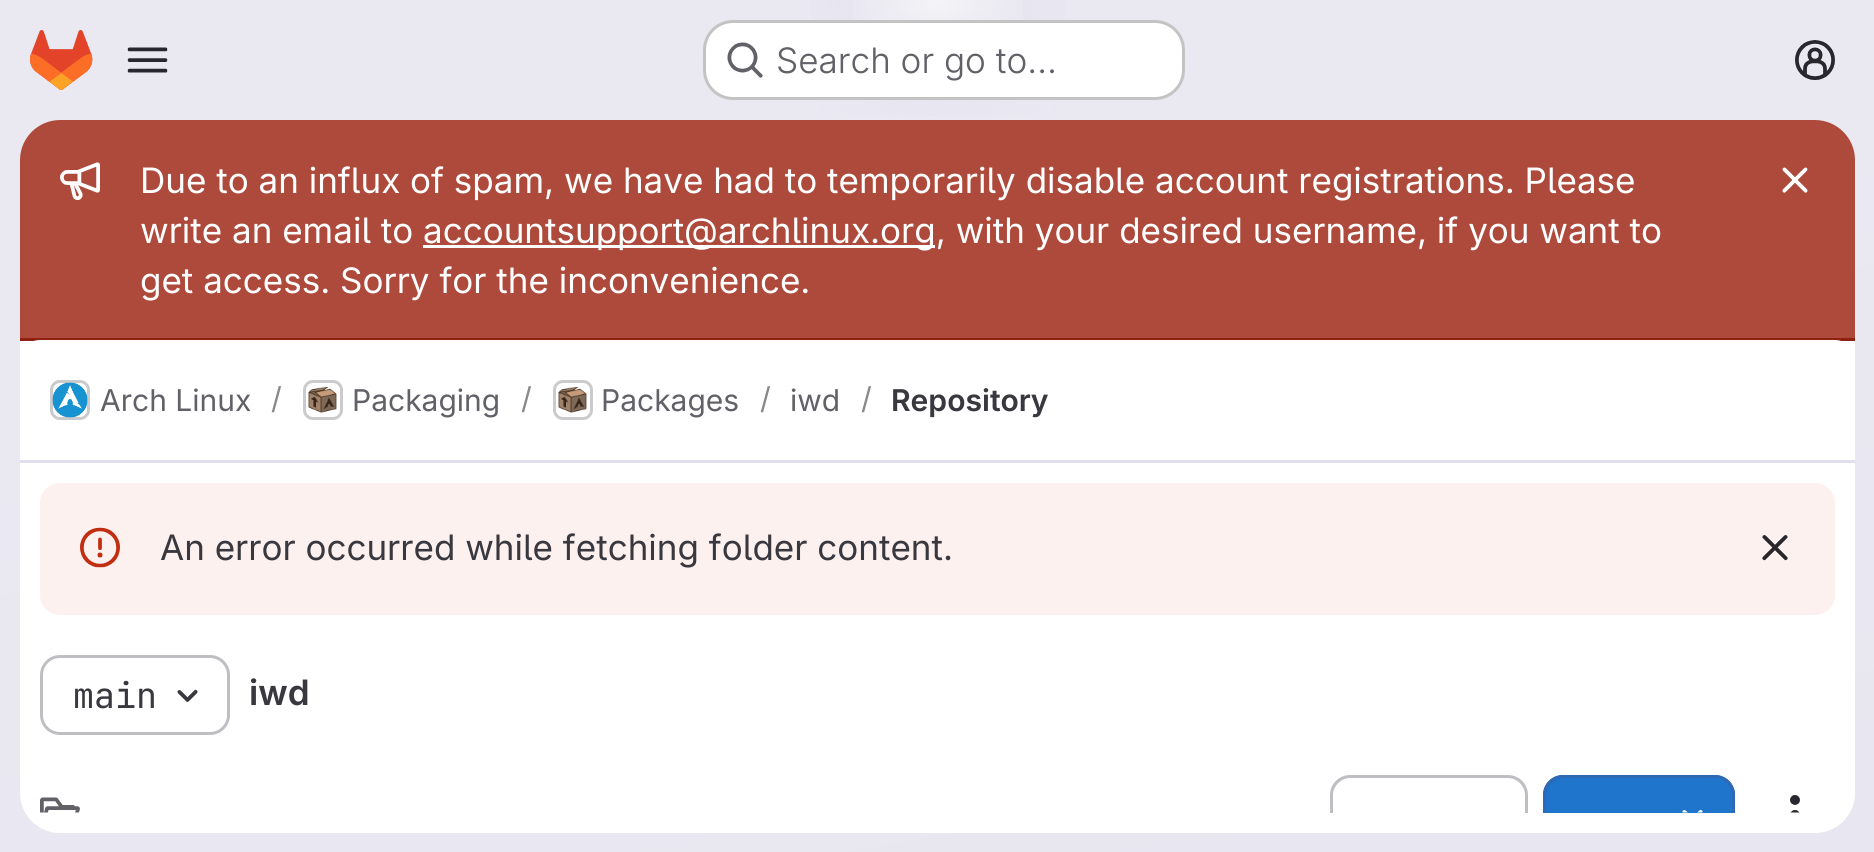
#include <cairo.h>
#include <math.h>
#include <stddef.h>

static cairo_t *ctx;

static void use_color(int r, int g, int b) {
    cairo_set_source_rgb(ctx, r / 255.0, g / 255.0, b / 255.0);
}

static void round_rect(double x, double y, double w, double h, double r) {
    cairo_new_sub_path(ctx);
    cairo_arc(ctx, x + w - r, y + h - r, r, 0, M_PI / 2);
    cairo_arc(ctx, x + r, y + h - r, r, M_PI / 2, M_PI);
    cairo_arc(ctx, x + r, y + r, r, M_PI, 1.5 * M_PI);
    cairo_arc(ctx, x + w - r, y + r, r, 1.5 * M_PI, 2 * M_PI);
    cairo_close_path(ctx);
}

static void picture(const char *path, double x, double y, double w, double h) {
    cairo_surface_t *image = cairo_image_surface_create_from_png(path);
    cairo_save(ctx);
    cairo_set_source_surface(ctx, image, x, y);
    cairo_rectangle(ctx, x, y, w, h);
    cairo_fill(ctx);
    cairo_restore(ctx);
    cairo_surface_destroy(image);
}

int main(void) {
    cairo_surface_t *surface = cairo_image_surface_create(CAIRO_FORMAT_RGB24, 1874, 852);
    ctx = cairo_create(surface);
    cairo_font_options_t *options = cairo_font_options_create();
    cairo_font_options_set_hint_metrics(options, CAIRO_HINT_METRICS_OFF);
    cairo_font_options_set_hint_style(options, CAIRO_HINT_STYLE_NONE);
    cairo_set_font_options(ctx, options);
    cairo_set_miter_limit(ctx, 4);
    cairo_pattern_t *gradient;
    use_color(255, 255, 255);
    cairo_paint(ctx);
    gradient = cairo_pattern_create_linear(1039, 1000, 836, -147);
    cairo_pattern_add_color_stop_rgba(gradient, 0, 0.91, 0.902, 0.941, 1);
    cairo_pattern_add_color_stop_rgba(gradient, 0.7, 0.918, 0.914, 0.949, 1);
    cairo_set_source(ctx, gradient);
    cairo_pattern_destroy(gradient);
    cairo_rectangle(ctx, 0, 0, 1874, 852);
    cairo_fill(ctx);
    gradient = cairo_pattern_create_radial(0, 0, 0, 0, 0, 1);
    cairo_pattern_set_matrix(gradient, &(cairo_matrix_t){1.0 / 938, 0, 0, 1.0 / 853, -1.0 * 938 / 938, -1.0 * 0 / 853});
    cairo_pattern_add_color_stop_rgba(gradient, 0, 0.894, 0.886, 0.929, 1);
    cairo_pattern_add_color_stop_rgba(gradient, 0.19, 0.894, 0.886, 0.929, 0);
    cairo_set_source(ctx, gradient);
    cairo_pattern_destroy(gradient);
    cairo_rectangle(ctx, 810, 0, 256, 116);
    cairo_fill(ctx);
    gradient = cairo_pattern_create_radial(0, 0, 0, 0, 0, 1);
    cairo_pattern_set_matrix(gradient, &(cairo_matrix_t){1.0 / 938, 0, 0, 1.0 / 853, -1.0 * 938 / 938, -1.0 * 0 / 853});
    cairo_pattern_add_color_stop_rgba(gradient, 0, 0.894, 0.886, 0.925, 1);
    cairo_pattern_add_color_stop_rgba(gradient, 0.13, 0.894, 0.886, 0.925, 0);
    cairo_set_source(ctx, gradient);
    cairo_pattern_destroy(gradient);
    cairo_rectangle(ctx, 895, 12, 86, 29);
    cairo_fill(ctx);
    gradient = cairo_pattern_create_radial(938, 0, 0, 938, 0, 1267);
    cairo_pattern_add_color_stop_rgba(gradient, 0, 1, 1, 1, 0.6);
    cairo_pattern_add_color_stop_rgba(gradient, 0.08, 1, 1, 1, 0);
    cairo_set_source(ctx, gradient);
    cairo_pattern_destroy(gradient);
    cairo_rectangle(ctx, 853, 0, 170, 20);
    cairo_fill(ctx);
    picture("img1.png", 30, 30, 63, 60);
    picture("img2.png", 127, 47, 41, 26);
    use_color(255, 255, 255);
    round_rect(703, 20, 482, 80, 30);
    cairo_fill(ctx);
    round_rect(704.5, 21.5, 479, 77, 28.5);
    cairo_set_source_rgba(ctx, 0.02, 0.02, 0.024, 0.24);
    cairo_set_line_width(ctx, 3);
    cairo_stroke(ctx);
    picture("img3.png", 727, 42, 36, 36);
    cairo_select_font_face(ctx, "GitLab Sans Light", CAIRO_FONT_SLANT_NORMAL, CAIRO_FONT_WEIGHT_NORMAL);
    cairo_set_font_size(ctx, 35);
    use_color(98, 97, 104);
    cairo_move_to(ctx, 776, 73);
    cairo_show_text(ctx, "Search or go to…");
    picture("img4.png", 1795, 40, 40, 40);
    use_color(255, 255, 255);
    round_rect(20, 120, 1835, 713, 40);
    cairo_fill(ctx);
    use_color(173, 74, 59);
    cairo_new_path(ctx);
    cairo_move_to(ctx, 60, 120);
    cairo_line_to(ctx, 1815, 120);
    cairo_curve_to(ctx, 1837, 120, 1855, 138, 1855, 160);
    cairo_line_to(ctx, 1855, 340);
    cairo_line_to(ctx, 20, 340);
    cairo_line_to(ctx, 20, 160);
    cairo_curve_to(ctx, 20, 138, 38, 120, 60, 120);
    cairo_close_path(ctx);
    cairo_fill(ctx);
    use_color(143, 33, 16);
    cairo_rectangle(ctx, 20, 338, 1835, 3);
    cairo_fill(ctx);
    picture("img5.png", 60, 162, 40, 38);
    cairo_select_font_face(ctx, "GitLab Sans", CAIRO_FONT_SLANT_NORMAL, CAIRO_FONT_WEIGHT_NORMAL);
    use_color(255, 255, 255);
    cairo_move_to(ctx, 140, 193);
    cairo_show_text(ctx, "Due to an influx of spam, we have had to temporarily disable account registrations. Please");
    cairo_move_to(ctx, 140, 243);
    cairo_show_text(ctx, "write an email to");
    cairo_rectangle(ctx, 423, 245, 512, 3);
    cairo_fill(ctx);
    cairo_move_to(ctx, 423, 243);
    cairo_show_text(ctx, "accountsupport@archlinux.org, with your desired username, if you want to");
    cairo_move_to(ctx, 140, 293);
    cairo_show_text(ctx, "get access. Sorry for the inconvenience.");
    picture("img6.png", 1782, 167, 26, 26);
    cairo_new_path(ctx);
    cairo_move_to(ctx, 40, 340);
    cairo_line_to(ctx, 1835, 340);
    cairo_curve_to(ctx, 1846, 340, 1855, 349, 1855, 360);
    cairo_line_to(ctx, 1855, 463);
    cairo_line_to(ctx, 20, 463);
    cairo_line_to(ctx, 20, 360);
    cairo_curve_to(ctx, 20, 349, 29, 340, 40, 340);
    cairo_close_path(ctx);
    cairo_fill(ctx);
    use_color(225, 223, 236);
    cairo_rectangle(ctx, 20, 460, 1835, 3);
    cairo_fill(ctx);
    round_rect(51.5, 381.5, 37, 37, 8.5);
    use_color(220, 220, 222);
    cairo_stroke(ctx);
    picture("img7.png", 52, 382, 36, 36);
    round_rect(51.5, 381.5, 37, 37, 8.5);
    cairo_set_source_rgba(ctx, 0.02, 0.02, 0.024, 0.08);
    cairo_stroke(ctx);
    cairo_set_font_size(ctx, 30);
    use_color(98, 97, 104);
    cairo_move_to(ctx, 100, 411);
    cairo_show_text(ctx, "Arch Linux");
    use_color(137, 136, 141);
    cairo_move_to(ctx, 271, 409);
    cairo_show_text(ctx, "/");
    round_rect(304.5, 381.5, 37, 37, 8.5);
    use_color(220, 220, 222);
    cairo_stroke(ctx);
    picture("img8.png", 308, 387, 29, 26);
    round_rect(304.5, 381.5, 37, 37, 8.5);
    cairo_set_source_rgba(ctx, 0.02, 0.02, 0.024, 0.08);
    cairo_stroke(ctx);
    use_color(98, 97, 104);
    cairo_move_to(ctx, 352, 411);
    cairo_show_text(ctx, "Packaging");
    use_color(137, 136, 141);
    cairo_move_to(ctx, 521, 409);
    cairo_show_text(ctx, "/");
    round_rect(554.5, 381.5, 37, 37, 8.5);
    use_color(220, 220, 222);
    cairo_stroke(ctx);
    picture("img9.png", 558, 387, 29, 26);
    round_rect(554.5, 381.5, 37, 37, 8.5);
    cairo_set_source_rgba(ctx, 0.02, 0.02, 0.024, 0.08);
    cairo_stroke(ctx);
    use_color(98, 97, 104);
    cairo_move_to(ctx, 601, 411);
    cairo_show_text(ctx, "Packages");
    use_color(137, 136, 141);
    cairo_move_to(ctx, 760, 409);
    cairo_show_text(ctx, "/");
    use_color(98, 97, 104);
    cairo_move_to(ctx, 790, 411);
    cairo_show_text(ctx, "iwd");
    use_color(137, 136, 141);
    cairo_move_to(ctx, 861, 409);
    cairo_show_text(ctx, "/");
    cairo_select_font_face(ctx, "GitLab Sans SemiBold", CAIRO_FONT_SLANT_NORMAL, CAIRO_FONT_WEIGHT_NORMAL);
    use_color(58, 56, 63);
    cairo_move_to(ctx, 891, 411);
    cairo_show_text(ctx, "Repository");
    use_color(252, 241, 239);
    round_rect(40, 483, 1795, 132, 20);
    cairo_fill(ctx);
    picture("img10.png", 80, 527, 40, 41);
    cairo_select_font_face(ctx, "GitLab Sans", CAIRO_FONT_SLANT_NORMAL, CAIRO_FONT_WEIGHT_NORMAL);
    cairo_set_font_size(ctx, 35);
    use_color(58, 56, 63);
    cairo_move_to(ctx, 160, 560);
    cairo_show_text(ctx, "An error occurred while fetching folder content.");
    picture("img11.png", 1762, 535, 26, 26);
    round_rect(41.5, 656.5, 187, 77, 18.5);
    use_color(191, 191, 195);
    cairo_stroke(ctx);
    cairo_select_font_face(ctx, "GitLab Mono", CAIRO_FONT_SLANT_NORMAL, CAIRO_FONT_WEIGHT_NORMAL);
    use_color(58, 56, 63);
    cairo_move_to(ctx, 73, 708);
    cairo_show_text(ctx, "main");
    picture("img12.png", 177, 689, 21, 13);
    cairo_select_font_face(ctx, "GitLab Sans SemiBold", CAIRO_FONT_SLANT_NORMAL, CAIRO_FONT_WEIGHT_NORMAL);
    cairo_move_to(ctx, 249, 705);
    cairo_show_text(ctx, "iwd");
    picture("img13.png", 40, 797, 40, 16);
    cairo_save(ctx);
    cairo_rectangle(ctx, 20, 463, 1835, 350);
    cairo_clip(ctx);
    use_color(191, 191, 195);
    cairo_new_path(ctx);
    cairo_move_to(ctx, 1350, 775);
    cairo_curve_to(ctx, 1339, 775, 1330, 784, 1330, 795);
    cairo_line_to(ctx, 1330, 833);
    cairo_line_to(ctx, 1333, 833);
    cairo_line_to(ctx, 1333, 795);
    cairo_curve_to(ctx, 1333, 786, 1341, 778, 1350, 778);
    cairo_line_to(ctx, 1508, 778);
    cairo_curve_to(ctx, 1517, 778, 1525, 786, 1525, 795);
    cairo_line_to(ctx, 1525, 833);
    cairo_line_to(ctx, 1528, 833);
    cairo_line_to(ctx, 1528, 795);
    cairo_curve_to(ctx, 1528, 784, 1519, 775, 1508, 775);
    cairo_close_path(ctx);
    cairo_fill(ctx);
    cairo_restore(ctx);
    use_color(31, 117, 203);
    cairo_new_path(ctx);
    cairo_move_to(ctx, 1563, 775);
    cairo_line_to(ctx, 1715, 775);
    cairo_curve_to(ctx, 1726, 775, 1735, 784, 1735, 795);
    cairo_line_to(ctx, 1735, 813);
    cairo_line_to(ctx, 1543, 813);
    cairo_line_to(ctx, 1543, 795);
    cairo_curve_to(ctx, 1543, 784, 1552, 775, 1563, 775);
    cairo_close_path(ctx);
    cairo_fill(ctx);
    cairo_save(ctx);
    cairo_rectangle(ctx, 20, 463, 1835, 350);
    cairo_clip(ctx);
    use_color(47, 104, 180);
    cairo_new_path(ctx);
    cairo_move_to(ctx, 1563, 775);
    cairo_curve_to(ctx, 1552, 775, 1543, 784, 1543, 795);
    cairo_line_to(ctx, 1543, 833);
    cairo_line_to(ctx, 1546, 833);
    cairo_line_to(ctx, 1546, 795);
    cairo_curve_to(ctx, 1546, 786, 1554, 778, 1563, 778);
    cairo_line_to(ctx, 1715, 778);
    cairo_curve_to(ctx, 1724, 778, 1732, 786, 1732, 795);
    cairo_line_to(ctx, 1732, 833);
    cairo_line_to(ctx, 1735, 833);
    cairo_line_to(ctx, 1735, 795);
    cairo_curve_to(ctx, 1735, 784, 1726, 775, 1715, 775);
    cairo_close_path(ctx);
    cairo_fill(ctx);
    cairo_restore(ctx);
    picture("img14.png", 1682, 809, 21, 4);
    picture("img15.png", 1790, 795, 10, 18);
    cairo_surface_write_to_png(surface, "result.png");
    cairo_font_options_destroy(options);
    cairo_destroy(ctx);
    cairo_surface_destroy(surface);
    return 0;
}
